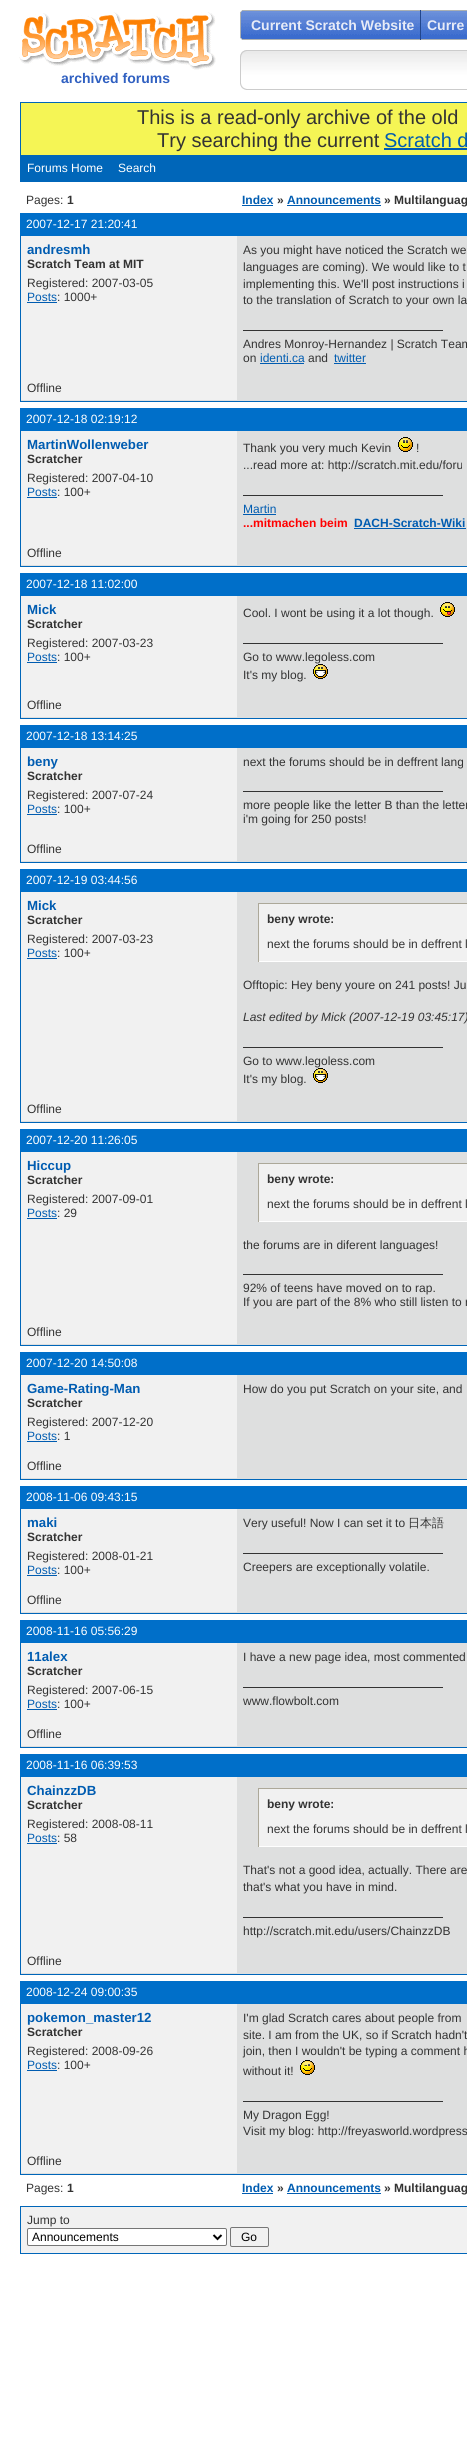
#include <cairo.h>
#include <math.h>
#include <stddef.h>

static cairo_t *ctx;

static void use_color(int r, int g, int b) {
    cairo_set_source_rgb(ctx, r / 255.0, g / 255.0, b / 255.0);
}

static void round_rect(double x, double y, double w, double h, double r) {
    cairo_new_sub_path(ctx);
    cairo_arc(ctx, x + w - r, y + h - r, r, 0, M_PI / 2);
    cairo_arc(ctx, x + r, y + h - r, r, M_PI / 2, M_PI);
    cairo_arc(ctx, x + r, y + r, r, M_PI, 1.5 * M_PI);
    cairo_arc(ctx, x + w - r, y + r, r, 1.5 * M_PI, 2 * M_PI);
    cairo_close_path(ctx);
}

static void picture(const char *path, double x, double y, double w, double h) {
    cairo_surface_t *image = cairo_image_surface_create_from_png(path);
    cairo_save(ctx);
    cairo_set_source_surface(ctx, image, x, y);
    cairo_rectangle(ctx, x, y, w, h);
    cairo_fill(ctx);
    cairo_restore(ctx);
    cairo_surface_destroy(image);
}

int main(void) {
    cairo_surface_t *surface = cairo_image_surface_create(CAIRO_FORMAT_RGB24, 467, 2459);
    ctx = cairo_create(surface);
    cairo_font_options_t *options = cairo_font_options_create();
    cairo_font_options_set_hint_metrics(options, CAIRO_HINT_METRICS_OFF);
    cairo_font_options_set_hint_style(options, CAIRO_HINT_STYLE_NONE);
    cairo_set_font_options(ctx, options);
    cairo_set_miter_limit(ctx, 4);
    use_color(255, 255, 255);
    cairo_paint(ctx);
    picture("img1.png", 240, 10, 227, 30);
    use_color(34, 70, 140);
    cairo_rectangle(ctx, 420, 10, 1, 30);
    cairo_fill(ctx);
    cairo_select_font_face(ctx, "Liberation Sans", CAIRO_FONT_SLANT_NORMAL, CAIRO_FONT_WEIGHT_BOLD);
    cairo_set_font_size(ctx, 14);
    use_color(231, 235, 247);
    cairo_move_to(ctx, 251, 30);
    cairo_show_text(ctx, "Current Scratch Website");
    cairo_move_to(ctx, 427, 30);
    cairo_show_text(ctx, "Curre");
    picture("img2.png", 19, 12, 197, 58);
    use_color(48, 96, 193);
    cairo_move_to(ctx, 61, 83);
    cairo_show_text(ctx, "archived forums");
    picture("img3.png", 240, 50, 227, 40);
    cairo_rectangle(ctx, 20.5, 102.5, 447, 79);
    use_color(0, 102, 185);
    cairo_set_line_width(ctx, 1);
    cairo_stroke(ctx);
    use_color(245, 245, 85);
    cairo_rectangle(ctx, 21, 103, 446, 52);
    cairo_fill(ctx);
    cairo_select_font_face(ctx, "Liberation Sans", CAIRO_FONT_SLANT_NORMAL, CAIRO_FONT_WEIGHT_NORMAL);
    cairo_set_font_size(ctx, 20);
    use_color(51, 51, 51);
    cairo_move_to(ctx, 137, 124);
    cairo_show_text(ctx, "This is a read-only archive of the old");
    cairo_move_to(ctx, 157, 147);
    cairo_show_text(ctx, "Try searching the current");
    use_color(0, 92, 177);
    cairo_move_to(ctx, 384, 147);
    cairo_show_text(ctx, "Scratch d");
    cairo_rectangle(ctx, 384, 148, 83, 2);
    cairo_fill(ctx);
    use_color(0, 102, 185);
    cairo_rectangle(ctx, 21, 155, 446, 26);
    cairo_fill(ctx);
    cairo_set_font_size(ctx, 12);
    use_color(255, 255, 255);
    cairo_move_to(ctx, 27, 172);
    cairo_show_text(ctx, "Forums Home");
    cairo_move_to(ctx, 118, 172);
    cairo_show_text(ctx, "Search");
    use_color(51, 51, 51);
    cairo_move_to(ctx, 26, 204);
    cairo_show_text(ctx, "Pages:");
    cairo_select_font_face(ctx, "Liberation Sans", CAIRO_FONT_SLANT_NORMAL, CAIRO_FONT_WEIGHT_BOLD);
    cairo_move_to(ctx, 67, 204);
    cairo_show_text(ctx, "1");
    use_color(0, 92, 177);
    cairo_move_to(ctx, 242, 204);
    cairo_show_text(ctx, "Index");
    cairo_rectangle(ctx, 242, 205, 31, 1);
    cairo_fill(ctx);
    use_color(51, 51, 51);
    cairo_move_to(ctx, 277, 204);
    cairo_show_text(ctx, "»");
    use_color(0, 92, 177);
    cairo_move_to(ctx, 287, 204);
    cairo_show_text(ctx, "Announcements");
    cairo_rectangle(ctx, 287, 205, 94, 1);
    cairo_fill(ctx);
    use_color(51, 51, 51);
    cairo_move_to(ctx, 384, 204);
    cairo_show_text(ctx, "» Multilanguag");
    use_color(0, 111, 201);
    cairo_rectangle(ctx, 20, 213, 447, 23);
    cairo_fill(ctx);
    cairo_select_font_face(ctx, "Liberation Sans", CAIRO_FONT_SLANT_NORMAL, CAIRO_FONT_WEIGHT_NORMAL);
    use_color(255, 255, 255);
    cairo_move_to(ctx, 26, 228);
    cairo_show_text(ctx, "2007-12-17 21:20:41");
    use_color(222, 223, 223);
    cairo_rectangle(ctx, 21, 236, 446, 165);
    cairo_fill(ctx);
    use_color(0, 102, 185);
    cairo_rectangle(ctx, 20, 401, 447, 1);
    cairo_fill(ctx);
    cairo_rectangle(ctx, 20, 235, 1, 167);
    cairo_fill(ctx);
    use_color(241, 241, 241);
    cairo_rectangle(ctx, 21, 236, 216, 164);
    cairo_fill(ctx);
    cairo_select_font_face(ctx, "Liberation Sans", CAIRO_FONT_SLANT_NORMAL, CAIRO_FONT_WEIGHT_BOLD);
    cairo_set_font_size(ctx, 13.25);
    use_color(0, 92, 177);
    cairo_move_to(ctx, 27, 254);
    cairo_show_text(ctx, "andresmh");
    cairo_set_font_size(ctx, 12);
    use_color(51, 51, 51);
    cairo_move_to(ctx, 27, 268);
    cairo_show_text(ctx, "Scratch Team at MIT");
    cairo_select_font_face(ctx, "Liberation Sans", CAIRO_FONT_SLANT_NORMAL, CAIRO_FONT_WEIGHT_NORMAL);
    cairo_move_to(ctx, 27, 287);
    cairo_show_text(ctx, "Registered: 2007-03-05");
    use_color(0, 92, 177);
    cairo_move_to(ctx, 27, 301);
    cairo_show_text(ctx, "Posts");
    cairo_rectangle(ctx, 27, 302, 30, 1);
    cairo_fill(ctx);
    use_color(51, 51, 51);
    cairo_move_to(ctx, 57, 301);
    cairo_show_text(ctx, ": 1000+");
    cairo_move_to(ctx, 243, 254);
    cairo_show_text(ctx, "As you might have noticed the Scratch we");
    cairo_move_to(ctx, 243, 271);
    cairo_show_text(ctx, "languages are coming). We would like to t");
    cairo_move_to(ctx, 243, 288);
    cairo_show_text(ctx, "implementing this. We'll post instructions i");
    cairo_move_to(ctx, 243, 304);
    cairo_show_text(ctx, "to the translation of Scratch to your own la");
    cairo_rectangle(ctx, 243, 330, 200, 1);
    cairo_fill(ctx);
    cairo_move_to(ctx, 243, 348);
    cairo_show_text(ctx, "Andres Monroy-Hernandez | Scratch Team");
    cairo_move_to(ctx, 243, 362);
    cairo_show_text(ctx, "on");
    use_color(0, 92, 177);
    cairo_move_to(ctx, 260, 362);
    cairo_show_text(ctx, "identi.ca");
    cairo_rectangle(ctx, 260, 363, 44, 1);
    cairo_fill(ctx);
    use_color(51, 51, 51);
    cairo_move_to(ctx, 308, 362);
    cairo_show_text(ctx, "and");
    use_color(0, 92, 177);
    cairo_move_to(ctx, 334, 362);
    cairo_show_text(ctx, "twitter");
    cairo_rectangle(ctx, 334, 363, 32, 1);
    cairo_fill(ctx);
    use_color(51, 51, 51);
    cairo_move_to(ctx, 27, 392);
    cairo_show_text(ctx, "Offline");
    use_color(0, 111, 201);
    cairo_rectangle(ctx, 20, 408, 447, 23);
    cairo_fill(ctx);
    use_color(255, 255, 255);
    cairo_move_to(ctx, 26, 423);
    cairo_show_text(ctx, "2007-12-18 02:19:12");
    use_color(222, 223, 223);
    cairo_rectangle(ctx, 21, 431, 446, 135);
    cairo_fill(ctx);
    use_color(0, 102, 185);
    cairo_rectangle(ctx, 20, 566, 447, 1);
    cairo_fill(ctx);
    cairo_rectangle(ctx, 20, 430, 1, 137);
    cairo_fill(ctx);
    use_color(241, 241, 241);
    cairo_rectangle(ctx, 21, 431, 216, 134);
    cairo_fill(ctx);
    cairo_select_font_face(ctx, "Liberation Sans", CAIRO_FONT_SLANT_NORMAL, CAIRO_FONT_WEIGHT_BOLD);
    cairo_set_font_size(ctx, 13.25);
    use_color(0, 92, 177);
    cairo_move_to(ctx, 27, 449);
    cairo_show_text(ctx, "MartinWollenweber");
    cairo_set_font_size(ctx, 12);
    use_color(51, 51, 51);
    cairo_move_to(ctx, 27, 463);
    cairo_show_text(ctx, "Scratcher");
    cairo_select_font_face(ctx, "Liberation Sans", CAIRO_FONT_SLANT_NORMAL, CAIRO_FONT_WEIGHT_NORMAL);
    cairo_move_to(ctx, 27, 482);
    cairo_show_text(ctx, "Registered: 2007-04-10");
    use_color(0, 92, 177);
    cairo_move_to(ctx, 27, 496);
    cairo_show_text(ctx, "Posts");
    cairo_rectangle(ctx, 27, 497, 30, 1);
    cairo_fill(ctx);
    use_color(51, 51, 51);
    cairo_move_to(ctx, 57, 496);
    cairo_show_text(ctx, ": 100+");
    cairo_move_to(ctx, 243, 452);
    cairo_show_text(ctx, "Thank you very much Kevin");
    picture("img4.png", 398, 437, 15, 15);
    cairo_move_to(ctx, 416, 452);
    cairo_show_text(ctx, "!");
    cairo_move_to(ctx, 243, 469);
    cairo_show_text(ctx, "...read more at: http://scratch.mit.edu/foru");
    cairo_rectangle(ctx, 243, 495, 200, 1);
    cairo_fill(ctx);
    use_color(0, 92, 177);
    cairo_move_to(ctx, 243, 513);
    cairo_show_text(ctx, "Martin");
    cairo_rectangle(ctx, 243, 514, 33, 1);
    cairo_fill(ctx);
    cairo_select_font_face(ctx, "Liberation Sans", CAIRO_FONT_SLANT_NORMAL, CAIRO_FONT_WEIGHT_BOLD);
    use_color(255, 0, 0);
    cairo_move_to(ctx, 243, 527);
    cairo_show_text(ctx, "...mitmachen beim");
    use_color(0, 92, 177);
    cairo_move_to(ctx, 354, 527);
    cairo_show_text(ctx, "DACH-Scratch-Wiki");
    cairo_rectangle(ctx, 354, 528, 112, 1);
    cairo_fill(ctx);
    cairo_select_font_face(ctx, "Liberation Sans", CAIRO_FONT_SLANT_NORMAL, CAIRO_FONT_WEIGHT_NORMAL);
    use_color(51, 51, 51);
    cairo_move_to(ctx, 27, 557);
    cairo_show_text(ctx, "Offline");
    use_color(0, 111, 201);
    cairo_rectangle(ctx, 20, 573, 447, 23);
    cairo_fill(ctx);
    use_color(255, 255, 255);
    cairo_move_to(ctx, 26, 588);
    cairo_show_text(ctx, "2007-12-18 11:02:00");
    use_color(222, 223, 223);
    cairo_rectangle(ctx, 21, 596, 446, 122);
    cairo_fill(ctx);
    use_color(0, 102, 185);
    cairo_rectangle(ctx, 20, 718, 447, 1);
    cairo_fill(ctx);
    cairo_rectangle(ctx, 20, 595, 1, 124);
    cairo_fill(ctx);
    use_color(241, 241, 241);
    cairo_rectangle(ctx, 21, 596, 216, 121);
    cairo_fill(ctx);
    cairo_select_font_face(ctx, "Liberation Sans", CAIRO_FONT_SLANT_NORMAL, CAIRO_FONT_WEIGHT_BOLD);
    cairo_set_font_size(ctx, 13.25);
    use_color(0, 92, 177);
    cairo_move_to(ctx, 27, 614);
    cairo_show_text(ctx, "Mick");
    cairo_set_font_size(ctx, 12);
    use_color(51, 51, 51);
    cairo_move_to(ctx, 27, 628);
    cairo_show_text(ctx, "Scratcher");
    cairo_select_font_face(ctx, "Liberation Sans", CAIRO_FONT_SLANT_NORMAL, CAIRO_FONT_WEIGHT_NORMAL);
    cairo_move_to(ctx, 27, 647);
    cairo_show_text(ctx, "Registered: 2007-03-23");
    use_color(0, 92, 177);
    cairo_move_to(ctx, 27, 661);
    cairo_show_text(ctx, "Posts");
    cairo_rectangle(ctx, 27, 662, 30, 1);
    cairo_fill(ctx);
    use_color(51, 51, 51);
    cairo_move_to(ctx, 57, 661);
    cairo_show_text(ctx, ": 100+");
    cairo_move_to(ctx, 243, 617);
    cairo_show_text(ctx, "Cool. I wont be using it a lot though.");
    picture("img5.png", 440, 602, 15, 15);
    cairo_rectangle(ctx, 243, 643, 200, 1);
    cairo_fill(ctx);
    cairo_move_to(ctx, 243, 661);
    cairo_show_text(ctx, "Go to www.legoless.com");
    cairo_move_to(ctx, 243, 679);
    cairo_show_text(ctx, "It's my blog.");
    picture("img6.png", 313, 664, 15, 15);
    cairo_move_to(ctx, 27, 709);
    cairo_show_text(ctx, "Offline");
    use_color(0, 111, 201);
    cairo_rectangle(ctx, 20, 725, 447, 23);
    cairo_fill(ctx);
    use_color(255, 255, 255);
    cairo_move_to(ctx, 26, 740);
    cairo_show_text(ctx, "2007-12-18 13:14:25");
    use_color(222, 223, 223);
    cairo_rectangle(ctx, 21, 748, 446, 114);
    cairo_fill(ctx);
    use_color(0, 102, 185);
    cairo_rectangle(ctx, 20, 862, 447, 1);
    cairo_fill(ctx);
    cairo_rectangle(ctx, 20, 747, 1, 116);
    cairo_fill(ctx);
    use_color(241, 241, 241);
    cairo_rectangle(ctx, 21, 748, 216, 113);
    cairo_fill(ctx);
    cairo_select_font_face(ctx, "Liberation Sans", CAIRO_FONT_SLANT_NORMAL, CAIRO_FONT_WEIGHT_BOLD);
    cairo_set_font_size(ctx, 13.25);
    use_color(0, 92, 177);
    cairo_move_to(ctx, 27, 766);
    cairo_show_text(ctx, "beny");
    cairo_set_font_size(ctx, 12);
    use_color(51, 51, 51);
    cairo_move_to(ctx, 27, 780);
    cairo_show_text(ctx, "Scratcher");
    cairo_select_font_face(ctx, "Liberation Sans", CAIRO_FONT_SLANT_NORMAL, CAIRO_FONT_WEIGHT_NORMAL);
    cairo_move_to(ctx, 27, 799);
    cairo_show_text(ctx, "Registered: 2007-07-24");
    use_color(0, 92, 177);
    cairo_move_to(ctx, 27, 813);
    cairo_show_text(ctx, "Posts");
    cairo_rectangle(ctx, 27, 814, 30, 1);
    cairo_fill(ctx);
    use_color(51, 51, 51);
    cairo_move_to(ctx, 57, 813);
    cairo_show_text(ctx, ": 100+");
    cairo_move_to(ctx, 243, 766);
    cairo_show_text(ctx, "next the forums should be in deffrent lang");
    cairo_rectangle(ctx, 243, 791, 200, 1);
    cairo_fill(ctx);
    cairo_move_to(ctx, 243, 809);
    cairo_show_text(ctx, "more people like the letter B than the letter");
    cairo_move_to(ctx, 243, 823);
    cairo_show_text(ctx, "i'm going for 250 posts!");
    cairo_move_to(ctx, 27, 853);
    cairo_show_text(ctx, "Offline");
    use_color(0, 111, 201);
    cairo_rectangle(ctx, 20, 869, 447, 23);
    cairo_fill(ctx);
    use_color(255, 255, 255);
    cairo_move_to(ctx, 26, 884);
    cairo_show_text(ctx, "2007-12-19 03:44:56");
    use_color(222, 223, 223);
    cairo_rectangle(ctx, 21, 892, 446, 230);
    cairo_fill(ctx);
    use_color(0, 102, 185);
    cairo_rectangle(ctx, 20, 1122, 447, 1);
    cairo_fill(ctx);
    cairo_rectangle(ctx, 20, 891, 1, 232);
    cairo_fill(ctx);
    use_color(241, 241, 241);
    cairo_rectangle(ctx, 21, 892, 216, 229);
    cairo_fill(ctx);
    cairo_select_font_face(ctx, "Liberation Sans", CAIRO_FONT_SLANT_NORMAL, CAIRO_FONT_WEIGHT_BOLD);
    cairo_set_font_size(ctx, 13.25);
    use_color(0, 92, 177);
    cairo_move_to(ctx, 27, 910);
    cairo_show_text(ctx, "Mick");
    cairo_set_font_size(ctx, 12);
    use_color(51, 51, 51);
    cairo_move_to(ctx, 27, 924);
    cairo_show_text(ctx, "Scratcher");
    cairo_select_font_face(ctx, "Liberation Sans", CAIRO_FONT_SLANT_NORMAL, CAIRO_FONT_WEIGHT_NORMAL);
    cairo_move_to(ctx, 27, 943);
    cairo_show_text(ctx, "Registered: 2007-03-23");
    use_color(0, 92, 177);
    cairo_move_to(ctx, 27, 957);
    cairo_show_text(ctx, "Posts");
    cairo_rectangle(ctx, 27, 958, 30, 1);
    cairo_fill(ctx);
    use_color(51, 51, 51);
    cairo_move_to(ctx, 57, 957);
    cairo_show_text(ctx, ": 100+");
    use_color(241, 241, 241);
    cairo_rectangle(ctx, 259, 904, 208, 57);
    cairo_fill(ctx);
    use_color(172, 168, 153);
    cairo_rectangle(ctx, 258, 903, 209, 1);
    cairo_fill(ctx);
    use_color(255, 255, 255);
    cairo_rectangle(ctx, 258, 961, 209, 1);
    cairo_fill(ctx);
    use_color(172, 168, 153);
    cairo_rectangle(ctx, 258, 903, 1, 59);
    cairo_fill(ctx);
    cairo_select_font_face(ctx, "Liberation Sans", CAIRO_FONT_SLANT_NORMAL, CAIRO_FONT_WEIGHT_BOLD);
    use_color(51, 51, 51);
    cairo_move_to(ctx, 267, 923);
    cairo_show_text(ctx, "beny wrote:");
    cairo_select_font_face(ctx, "Liberation Sans", CAIRO_FONT_SLANT_NORMAL, CAIRO_FONT_WEIGHT_NORMAL);
    cairo_move_to(ctx, 267, 948);
    cairo_show_text(ctx, "next the forums should be in deffrent l");
    cairo_move_to(ctx, 243, 989);
    cairo_show_text(ctx, "Offtopic: Hey beny youre on 241 posts! Ju");
    cairo_select_font_face(ctx, "Liberation Sans", CAIRO_FONT_SLANT_ITALIC, CAIRO_FONT_WEIGHT_NORMAL);
    cairo_move_to(ctx, 243, 1021);
    cairo_show_text(ctx, "Last edited by Mick (2007-12-19 03:45:17)");
    cairo_rectangle(ctx, 243, 1047, 200, 1);
    cairo_fill(ctx);
    cairo_select_font_face(ctx, "Liberation Sans", CAIRO_FONT_SLANT_NORMAL, CAIRO_FONT_WEIGHT_NORMAL);
    cairo_move_to(ctx, 243, 1065);
    cairo_show_text(ctx, "Go to www.legoless.com");
    cairo_move_to(ctx, 243, 1083);
    cairo_show_text(ctx, "It's my blog.");
    picture("img6.png", 313, 1068, 15, 15);
    cairo_move_to(ctx, 27, 1113);
    cairo_show_text(ctx, "Offline");
    use_color(0, 111, 201);
    cairo_rectangle(ctx, 20, 1129, 447, 23);
    cairo_fill(ctx);
    use_color(255, 255, 255);
    cairo_move_to(ctx, 26, 1144);
    cairo_show_text(ctx, "2007-12-20 11:26:05");
    use_color(222, 223, 223);
    cairo_rectangle(ctx, 21, 1152, 446, 193);
    cairo_fill(ctx);
    use_color(0, 102, 185);
    cairo_rectangle(ctx, 20, 1345, 447, 1);
    cairo_fill(ctx);
    cairo_rectangle(ctx, 20, 1151, 1, 195);
    cairo_fill(ctx);
    use_color(241, 241, 241);
    cairo_rectangle(ctx, 21, 1152, 216, 192);
    cairo_fill(ctx);
    cairo_select_font_face(ctx, "Liberation Sans", CAIRO_FONT_SLANT_NORMAL, CAIRO_FONT_WEIGHT_BOLD);
    cairo_set_font_size(ctx, 13.25);
    use_color(0, 92, 177);
    cairo_move_to(ctx, 27, 1170);
    cairo_show_text(ctx, "Hiccup");
    cairo_set_font_size(ctx, 12);
    use_color(51, 51, 51);
    cairo_move_to(ctx, 27, 1184);
    cairo_show_text(ctx, "Scratcher");
    cairo_select_font_face(ctx, "Liberation Sans", CAIRO_FONT_SLANT_NORMAL, CAIRO_FONT_WEIGHT_NORMAL);
    cairo_move_to(ctx, 27, 1203);
    cairo_show_text(ctx, "Registered: 2007-09-01");
    use_color(0, 92, 177);
    cairo_move_to(ctx, 27, 1217);
    cairo_show_text(ctx, "Posts");
    cairo_rectangle(ctx, 27, 1218, 30, 1);
    cairo_fill(ctx);
    use_color(51, 51, 51);
    cairo_move_to(ctx, 57, 1217);
    cairo_show_text(ctx, ": 29");
    use_color(241, 241, 241);
    cairo_rectangle(ctx, 259, 1164, 208, 57);
    cairo_fill(ctx);
    use_color(172, 168, 153);
    cairo_rectangle(ctx, 258, 1163, 209, 1);
    cairo_fill(ctx);
    use_color(255, 255, 255);
    cairo_rectangle(ctx, 258, 1221, 209, 1);
    cairo_fill(ctx);
    use_color(172, 168, 153);
    cairo_rectangle(ctx, 258, 1163, 1, 59);
    cairo_fill(ctx);
    cairo_select_font_face(ctx, "Liberation Sans", CAIRO_FONT_SLANT_NORMAL, CAIRO_FONT_WEIGHT_BOLD);
    use_color(51, 51, 51);
    cairo_move_to(ctx, 267, 1183);
    cairo_show_text(ctx, "beny wrote:");
    cairo_select_font_face(ctx, "Liberation Sans", CAIRO_FONT_SLANT_NORMAL, CAIRO_FONT_WEIGHT_NORMAL);
    cairo_move_to(ctx, 267, 1208);
    cairo_show_text(ctx, "next the forums should be in deffrent l");
    cairo_move_to(ctx, 243, 1249);
    cairo_show_text(ctx, "the forums are in diferent languages!");
    cairo_rectangle(ctx, 243, 1274, 200, 1);
    cairo_fill(ctx);
    cairo_move_to(ctx, 243, 1292);
    cairo_show_text(ctx, "92% of teens have moved on to rap.");
    cairo_move_to(ctx, 243, 1306);
    cairo_show_text(ctx, "If you are part of the 8% who still listen to r");
    cairo_move_to(ctx, 27, 1336);
    cairo_show_text(ctx, "Offline");
    use_color(0, 111, 201);
    cairo_rectangle(ctx, 20, 1352, 447, 23);
    cairo_fill(ctx);
    use_color(255, 255, 255);
    cairo_move_to(ctx, 26, 1367);
    cairo_show_text(ctx, "2007-12-20 14:50:08");
    use_color(222, 223, 223);
    cairo_rectangle(ctx, 21, 1375, 446, 104);
    cairo_fill(ctx);
    use_color(0, 102, 185);
    cairo_rectangle(ctx, 20, 1479, 447, 1);
    cairo_fill(ctx);
    cairo_rectangle(ctx, 20, 1374, 1, 106);
    cairo_fill(ctx);
    use_color(241, 241, 241);
    cairo_rectangle(ctx, 21, 1375, 216, 103);
    cairo_fill(ctx);
    cairo_select_font_face(ctx, "Liberation Sans", CAIRO_FONT_SLANT_NORMAL, CAIRO_FONT_WEIGHT_BOLD);
    cairo_set_font_size(ctx, 13.25);
    use_color(0, 92, 177);
    cairo_move_to(ctx, 27, 1393);
    cairo_show_text(ctx, "Game-Rating-Man");
    cairo_set_font_size(ctx, 12);
    use_color(51, 51, 51);
    cairo_move_to(ctx, 27, 1407);
    cairo_show_text(ctx, "Scratcher");
    cairo_select_font_face(ctx, "Liberation Sans", CAIRO_FONT_SLANT_NORMAL, CAIRO_FONT_WEIGHT_NORMAL);
    cairo_move_to(ctx, 27, 1426);
    cairo_show_text(ctx, "Registered: 2007-12-20");
    use_color(0, 92, 177);
    cairo_move_to(ctx, 27, 1440);
    cairo_show_text(ctx, "Posts");
    cairo_rectangle(ctx, 27, 1441, 30, 1);
    cairo_fill(ctx);
    use_color(51, 51, 51);
    cairo_move_to(ctx, 57, 1440);
    cairo_show_text(ctx, ": 1");
    cairo_move_to(ctx, 243, 1393);
    cairo_show_text(ctx, "How do you put Scratch on your site, and");
    cairo_move_to(ctx, 27, 1470);
    cairo_show_text(ctx, "Offline");
    use_color(0, 111, 201);
    cairo_rectangle(ctx, 20, 1486, 447, 23);
    cairo_fill(ctx);
    use_color(255, 255, 255);
    cairo_move_to(ctx, 26, 1501);
    cairo_show_text(ctx, "2008-11-06 09:43:15");
    use_color(222, 223, 223);
    cairo_rectangle(ctx, 21, 1509, 446, 104);
    cairo_fill(ctx);
    use_color(0, 102, 185);
    cairo_rectangle(ctx, 20, 1613, 447, 1);
    cairo_fill(ctx);
    cairo_rectangle(ctx, 20, 1508, 1, 106);
    cairo_fill(ctx);
    use_color(241, 241, 241);
    cairo_rectangle(ctx, 21, 1509, 216, 103);
    cairo_fill(ctx);
    cairo_select_font_face(ctx, "Liberation Sans", CAIRO_FONT_SLANT_NORMAL, CAIRO_FONT_WEIGHT_BOLD);
    cairo_set_font_size(ctx, 13.25);
    use_color(0, 92, 177);
    cairo_move_to(ctx, 27, 1527);
    cairo_show_text(ctx, "maki");
    cairo_set_font_size(ctx, 12);
    use_color(51, 51, 51);
    cairo_move_to(ctx, 27, 1541);
    cairo_show_text(ctx, "Scratcher");
    cairo_select_font_face(ctx, "Liberation Sans", CAIRO_FONT_SLANT_NORMAL, CAIRO_FONT_WEIGHT_NORMAL);
    cairo_move_to(ctx, 27, 1560);
    cairo_show_text(ctx, "Registered: 2008-01-21");
    use_color(0, 92, 177);
    cairo_move_to(ctx, 27, 1574);
    cairo_show_text(ctx, "Posts");
    cairo_rectangle(ctx, 27, 1575, 30, 1);
    cairo_fill(ctx);
    use_color(51, 51, 51);
    cairo_move_to(ctx, 57, 1574);
    cairo_show_text(ctx, ": 100+");
    cairo_move_to(ctx, 243, 1527);
    cairo_show_text(ctx, "Very useful! Now I can set it to");
    cairo_select_font_face(ctx, "WenQuanYi Zen Hei Medium", CAIRO_FONT_SLANT_NORMAL, CAIRO_FONT_WEIGHT_NORMAL);
    cairo_move_to(ctx, 408, 1527);
    cairo_show_text(ctx, "日本語");
    cairo_rectangle(ctx, 243, 1553, 200, 1);
    cairo_fill(ctx);
    cairo_select_font_face(ctx, "Liberation Sans", CAIRO_FONT_SLANT_NORMAL, CAIRO_FONT_WEIGHT_NORMAL);
    cairo_move_to(ctx, 243, 1571);
    cairo_show_text(ctx, "Creepers are exceptionally volatile.");
    cairo_move_to(ctx, 27, 1604);
    cairo_show_text(ctx, "Offline");
    use_color(0, 111, 201);
    cairo_rectangle(ctx, 20, 1620, 447, 23);
    cairo_fill(ctx);
    use_color(255, 255, 255);
    cairo_move_to(ctx, 26, 1635);
    cairo_show_text(ctx, "2008-11-16 05:56:29");
    use_color(222, 223, 223);
    cairo_rectangle(ctx, 21, 1643, 446, 104);
    cairo_fill(ctx);
    use_color(0, 102, 185);
    cairo_rectangle(ctx, 20, 1747, 447, 1);
    cairo_fill(ctx);
    cairo_rectangle(ctx, 20, 1642, 1, 106);
    cairo_fill(ctx);
    use_color(241, 241, 241);
    cairo_rectangle(ctx, 21, 1643, 216, 103);
    cairo_fill(ctx);
    cairo_select_font_face(ctx, "Liberation Sans", CAIRO_FONT_SLANT_NORMAL, CAIRO_FONT_WEIGHT_BOLD);
    cairo_set_font_size(ctx, 13.25);
    use_color(0, 92, 177);
    cairo_move_to(ctx, 27, 1661);
    cairo_show_text(ctx, "11alex");
    cairo_set_font_size(ctx, 12);
    use_color(51, 51, 51);
    cairo_move_to(ctx, 27, 1675);
    cairo_show_text(ctx, "Scratcher");
    cairo_select_font_face(ctx, "Liberation Sans", CAIRO_FONT_SLANT_NORMAL, CAIRO_FONT_WEIGHT_NORMAL);
    cairo_move_to(ctx, 27, 1694);
    cairo_show_text(ctx, "Registered: 2007-06-15");
    use_color(0, 92, 177);
    cairo_move_to(ctx, 27, 1708);
    cairo_show_text(ctx, "Posts");
    cairo_rectangle(ctx, 27, 1709, 30, 1);
    cairo_fill(ctx);
    use_color(51, 51, 51);
    cairo_move_to(ctx, 57, 1708);
    cairo_show_text(ctx, ": 100+");
    cairo_move_to(ctx, 243, 1661);
    cairo_show_text(ctx, "I have a new page idea, most commented");
    cairo_rectangle(ctx, 243, 1687, 200, 1);
    cairo_fill(ctx);
    cairo_move_to(ctx, 243, 1705);
    cairo_show_text(ctx, "www.flowbolt.com");
    cairo_move_to(ctx, 27, 1738);
    cairo_show_text(ctx, "Offline");
    use_color(0, 111, 201);
    cairo_rectangle(ctx, 20, 1754, 447, 23);
    cairo_fill(ctx);
    use_color(255, 255, 255);
    cairo_move_to(ctx, 26, 1769);
    cairo_show_text(ctx, "2008-11-16 06:39:53");
    use_color(222, 223, 223);
    cairo_rectangle(ctx, 21, 1777, 446, 197);
    cairo_fill(ctx);
    use_color(0, 102, 185);
    cairo_rectangle(ctx, 20, 1974, 447, 1);
    cairo_fill(ctx);
    cairo_rectangle(ctx, 20, 1776, 1, 199);
    cairo_fill(ctx);
    use_color(241, 241, 241);
    cairo_rectangle(ctx, 21, 1777, 216, 196);
    cairo_fill(ctx);
    cairo_select_font_face(ctx, "Liberation Sans", CAIRO_FONT_SLANT_NORMAL, CAIRO_FONT_WEIGHT_BOLD);
    cairo_set_font_size(ctx, 13.25);
    use_color(0, 92, 177);
    cairo_move_to(ctx, 27, 1795);
    cairo_show_text(ctx, "ChainzzDB");
    cairo_set_font_size(ctx, 12);
    use_color(51, 51, 51);
    cairo_move_to(ctx, 27, 1809);
    cairo_show_text(ctx, "Scratcher");
    cairo_select_font_face(ctx, "Liberation Sans", CAIRO_FONT_SLANT_NORMAL, CAIRO_FONT_WEIGHT_NORMAL);
    cairo_move_to(ctx, 27, 1828);
    cairo_show_text(ctx, "Registered: 2008-08-11");
    use_color(0, 92, 177);
    cairo_move_to(ctx, 27, 1842);
    cairo_show_text(ctx, "Posts");
    cairo_rectangle(ctx, 27, 1843, 30, 1);
    cairo_fill(ctx);
    use_color(51, 51, 51);
    cairo_move_to(ctx, 57, 1842);
    cairo_show_text(ctx, ": 58");
    use_color(241, 241, 241);
    cairo_rectangle(ctx, 259, 1789, 208, 57);
    cairo_fill(ctx);
    use_color(172, 168, 153);
    cairo_rectangle(ctx, 258, 1788, 209, 1);
    cairo_fill(ctx);
    use_color(255, 255, 255);
    cairo_rectangle(ctx, 258, 1846, 209, 1);
    cairo_fill(ctx);
    use_color(172, 168, 153);
    cairo_rectangle(ctx, 258, 1788, 1, 59);
    cairo_fill(ctx);
    cairo_select_font_face(ctx, "Liberation Sans", CAIRO_FONT_SLANT_NORMAL, CAIRO_FONT_WEIGHT_BOLD);
    use_color(51, 51, 51);
    cairo_move_to(ctx, 267, 1808);
    cairo_show_text(ctx, "beny wrote:");
    cairo_select_font_face(ctx, "Liberation Sans", CAIRO_FONT_SLANT_NORMAL, CAIRO_FONT_WEIGHT_NORMAL);
    cairo_move_to(ctx, 267, 1833);
    cairo_show_text(ctx, "next the forums should be in deffrent l");
    cairo_move_to(ctx, 243, 1874);
    cairo_show_text(ctx, "That's not a good idea, actually. There are");
    cairo_move_to(ctx, 243, 1891);
    cairo_show_text(ctx, "that's what you have in mind.");
    cairo_rectangle(ctx, 243, 1917, 200, 1);
    cairo_fill(ctx);
    cairo_move_to(ctx, 243, 1935);
    cairo_show_text(ctx, "http://scratch.mit.edu/users/ChainzzDB");
    cairo_move_to(ctx, 27, 1965);
    cairo_show_text(ctx, "Offline");
    use_color(0, 111, 201);
    cairo_rectangle(ctx, 20, 1981, 447, 23);
    cairo_fill(ctx);
    use_color(255, 255, 255);
    cairo_move_to(ctx, 26, 1996);
    cairo_show_text(ctx, "2008-12-24 09:00:35");
    use_color(222, 223, 223);
    cairo_rectangle(ctx, 21, 2004, 446, 170);
    cairo_fill(ctx);
    use_color(0, 102, 185);
    cairo_rectangle(ctx, 20, 2174, 447, 1);
    cairo_fill(ctx);
    cairo_rectangle(ctx, 20, 2003, 1, 172);
    cairo_fill(ctx);
    use_color(241, 241, 241);
    cairo_rectangle(ctx, 21, 2004, 216, 169);
    cairo_fill(ctx);
    cairo_select_font_face(ctx, "Liberation Sans", CAIRO_FONT_SLANT_NORMAL, CAIRO_FONT_WEIGHT_BOLD);
    cairo_set_font_size(ctx, 13.25);
    use_color(0, 92, 177);
    cairo_move_to(ctx, 27, 2022);
    cairo_show_text(ctx, "pokemon_master12");
    cairo_set_font_size(ctx, 12);
    use_color(51, 51, 51);
    cairo_move_to(ctx, 27, 2036);
    cairo_show_text(ctx, "Scratcher");
    cairo_select_font_face(ctx, "Liberation Sans", CAIRO_FONT_SLANT_NORMAL, CAIRO_FONT_WEIGHT_NORMAL);
    cairo_move_to(ctx, 27, 2055);
    cairo_show_text(ctx, "Registered: 2008-09-26");
    use_color(0, 92, 177);
    cairo_move_to(ctx, 27, 2069);
    cairo_show_text(ctx, "Posts");
    cairo_rectangle(ctx, 27, 2070, 30, 1);
    cairo_fill(ctx);
    use_color(51, 51, 51);
    cairo_move_to(ctx, 57, 2069);
    cairo_show_text(ctx, ": 100+");
    cairo_move_to(ctx, 243, 2022);
    cairo_show_text(ctx, "I'm glad Scratch cares about people from");
    cairo_move_to(ctx, 243, 2039);
    cairo_show_text(ctx, "site. I am from the UK, so if Scratch hadn't");
    cairo_move_to(ctx, 243, 2055);
    cairo_show_text(ctx, "join, then I wouldn't be typing a comment h");
    cairo_move_to(ctx, 243, 2075);
    cairo_show_text(ctx, "without it!");
    picture("img7.png", 300, 2060, 15, 15);
    cairo_rectangle(ctx, 243, 2101, 200, 1);
    cairo_fill(ctx);
    cairo_move_to(ctx, 243, 2119);
    cairo_show_text(ctx, "My Dragon Egg!");
    cairo_move_to(ctx, 243, 2135);
    cairo_show_text(ctx, "Visit my blog: http://freyasworld.wordpress");
    cairo_move_to(ctx, 27, 2165);
    cairo_show_text(ctx, "Offline");
    cairo_move_to(ctx, 26, 2192);
    cairo_show_text(ctx, "Pages:");
    cairo_select_font_face(ctx, "Liberation Sans", CAIRO_FONT_SLANT_NORMAL, CAIRO_FONT_WEIGHT_BOLD);
    cairo_move_to(ctx, 67, 2192);
    cairo_show_text(ctx, "1");
    use_color(0, 92, 177);
    cairo_move_to(ctx, 242, 2192);
    cairo_show_text(ctx, "Index");
    cairo_rectangle(ctx, 242, 2193, 31, 1);
    cairo_fill(ctx);
    use_color(51, 51, 51);
    cairo_move_to(ctx, 277, 2192);
    cairo_show_text(ctx, "»");
    use_color(0, 92, 177);
    cairo_move_to(ctx, 287, 2192);
    cairo_show_text(ctx, "Announcements");
    cairo_rectangle(ctx, 287, 2193, 94, 1);
    cairo_fill(ctx);
    use_color(51, 51, 51);
    cairo_move_to(ctx, 384, 2192);
    cairo_show_text(ctx, "» Multilanguag");
    use_color(241, 241, 241);
    cairo_rectangle(ctx, 20.5, 2206.5, 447, 47);
    cairo_fill_preserve(ctx);
    use_color(0, 102, 185);
    cairo_stroke(ctx);
    cairo_select_font_face(ctx, "Liberation Sans", CAIRO_FONT_SLANT_NORMAL, CAIRO_FONT_WEIGHT_NORMAL);
    use_color(51, 51, 51);
    cairo_move_to(ctx, 27, 2224);
    cairo_show_text(ctx, "Jump to");
    use_color(255, 255, 255);
    round_rect(27.5, 2228.5, 199, 17, 1.5);
    cairo_fill_preserve(ctx);
    use_color(118, 118, 118);
    cairo_stroke(ctx);
    cairo_new_path(ctx);
    cairo_move_to(ctx, 213.5, 2235);
    cairo_line_to(ctx, 217.5, 2239);
    cairo_line_to(ctx, 221.5, 2235);
    use_color(0, 0, 0);
    cairo_set_line_width(ctx, 2);
    cairo_stroke(ctx);
    cairo_move_to(ctx, 32, 2241);
    cairo_show_text(ctx, "Announcements");
    round_rect(230.5, 2227.5, 38, 19, 1.5);
    use_color(118, 118, 118);
    cairo_set_line_width(ctx, 1);
    cairo_stroke(ctx);
    use_color(0, 0, 0);
    cairo_move_to(ctx, 241, 2241);
    cairo_show_text(ctx, "Go");
    cairo_surface_write_to_png(surface, "result.png");
    cairo_font_options_destroy(options);
    cairo_destroy(ctx);
    cairo_surface_destroy(surface);
    return 0;
}
